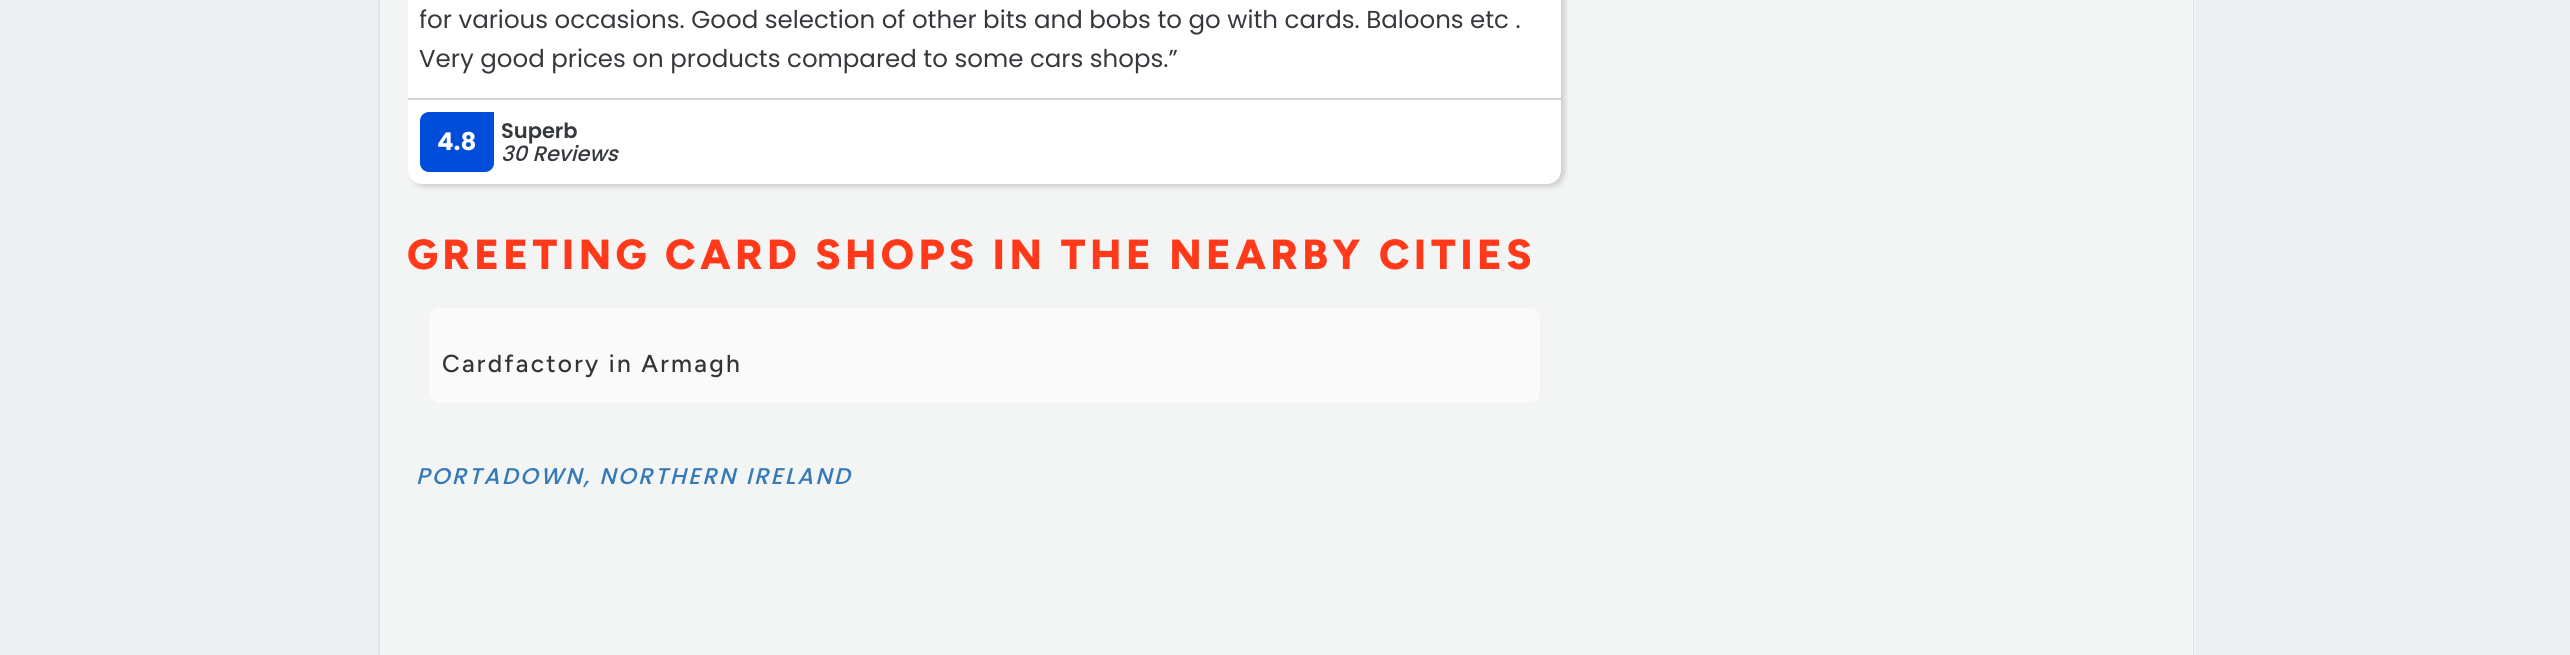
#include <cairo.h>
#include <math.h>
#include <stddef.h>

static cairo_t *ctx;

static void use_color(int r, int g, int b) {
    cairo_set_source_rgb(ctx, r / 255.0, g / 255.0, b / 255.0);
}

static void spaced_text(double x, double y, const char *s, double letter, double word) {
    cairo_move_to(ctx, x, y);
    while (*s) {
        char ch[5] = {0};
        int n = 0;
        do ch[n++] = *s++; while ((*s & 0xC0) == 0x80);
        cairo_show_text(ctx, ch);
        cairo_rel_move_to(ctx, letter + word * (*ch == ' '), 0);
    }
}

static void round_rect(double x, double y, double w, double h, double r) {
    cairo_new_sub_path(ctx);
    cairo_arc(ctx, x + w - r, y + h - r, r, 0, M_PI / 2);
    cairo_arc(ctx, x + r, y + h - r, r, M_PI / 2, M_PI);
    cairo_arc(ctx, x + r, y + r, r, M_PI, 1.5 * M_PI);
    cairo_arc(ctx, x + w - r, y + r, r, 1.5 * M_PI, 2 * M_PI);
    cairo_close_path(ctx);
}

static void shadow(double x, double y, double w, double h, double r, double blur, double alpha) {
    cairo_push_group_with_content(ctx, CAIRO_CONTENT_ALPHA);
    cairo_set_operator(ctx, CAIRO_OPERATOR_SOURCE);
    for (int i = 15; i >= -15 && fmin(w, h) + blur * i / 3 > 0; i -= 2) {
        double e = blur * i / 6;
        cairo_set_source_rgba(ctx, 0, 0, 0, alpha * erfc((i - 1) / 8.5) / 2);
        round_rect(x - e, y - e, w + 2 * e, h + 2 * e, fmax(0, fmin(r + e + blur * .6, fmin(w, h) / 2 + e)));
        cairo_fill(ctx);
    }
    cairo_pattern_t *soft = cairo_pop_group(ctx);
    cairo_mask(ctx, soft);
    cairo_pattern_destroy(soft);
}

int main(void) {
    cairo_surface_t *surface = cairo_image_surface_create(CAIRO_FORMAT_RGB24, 2570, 655);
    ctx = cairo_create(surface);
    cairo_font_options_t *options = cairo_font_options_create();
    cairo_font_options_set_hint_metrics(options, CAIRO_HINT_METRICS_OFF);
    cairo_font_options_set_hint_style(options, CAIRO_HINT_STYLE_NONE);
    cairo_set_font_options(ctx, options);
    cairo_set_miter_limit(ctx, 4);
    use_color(236, 239, 241);
    cairo_paint(ctx);
    use_color(243, 244, 244);
    cairo_new_path(ctx);
    cairo_move_to(ctx, 378, -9);
    cairo_line_to(ctx, 2195, -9);
    cairo_line_to(ctx, 2195, 653);
    cairo_curve_to(ctx, 2195, 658, 2191, 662, 2186, 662);
    cairo_line_to(ctx, 387, 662);
    cairo_curve_to(ctx, 382, 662, 378, 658, 378, 653);
    cairo_close_path(ctx);
    cairo_fill(ctx);
    use_color(225, 225, 225);
    cairo_set_fill_rule(ctx, CAIRO_FILL_RULE_EVEN_ODD);
    cairo_new_path(ctx);
    cairo_move_to(ctx, 378, -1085);
    cairo_line_to(ctx, 2194, -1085);
    cairo_line_to(ctx, 2194, 653);
    cairo_curve_to(ctx, 2194, 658, 2191, 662, 2186, 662);
    cairo_line_to(ctx, 387, 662);
    cairo_curve_to(ctx, 382, 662, 378, 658, 378, 653);
    cairo_close_path(ctx);
    cairo_move_to(ctx, 380, -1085);
    cairo_line_to(ctx, 2193, -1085);
    cairo_line_to(ctx, 2193, 653);
    cairo_curve_to(ctx, 2193, 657, 2190, 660, 2186, 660);
    cairo_line_to(ctx, 387, 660);
    cairo_curve_to(ctx, 383, 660, 380, 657, 380, 653);
    cairo_close_path(ctx);
    cairo_fill(ctx);
    use_color(0, 0, 0);
    shadow(411, -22, 1154, 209, 14, 2.5, 0.15);
    use_color(255, 255, 255);
    round_rect(408, -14, 1153, 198, 14);
    cairo_fill(ctx);
    cairo_save(ctx);
    cairo_set_fill_rule(ctx, CAIRO_FILL_RULE_WINDING);
    cairo_rectangle(ctx, 420, 0, 1129, 79);
    cairo_clip(ctx);
    cairo_select_font_face(ctx, "Poppins", CAIRO_FONT_SLANT_NORMAL, CAIRO_FONT_WEIGHT_NORMAL);
    cairo_set_font_size(ctx, 24.5);
    use_color(53, 57, 61);
    cairo_move_to(ctx, 419, 28);
    cairo_show_text(ctx, "for various occasions. Good selection of other bits and bobs to go with cards. Baloons");
    cairo_restore(ctx);
    cairo_select_font_face(ctx, "Poppins", CAIRO_FONT_SLANT_NORMAL, CAIRO_FONT_WEIGHT_NORMAL);
    cairo_set_font_size(ctx, 24.5);
    use_color(53, 57, 61);
    cairo_move_to(ctx, 1470, 28);
    cairo_show_text(ctx, "etc .");
    cairo_move_to(ctx, 419, 67);
    cairo_show_text(ctx, "Very good prices on products compared to some cars shops.”");
    use_color(211, 211, 211);
    cairo_rectangle(ctx, 408, 98, 1153, 2);
    cairo_fill(ctx);
    use_color(0, 77, 218);
    cairo_new_path(ctx);
    cairo_move_to(ctx, 429, 112);
    cairo_line_to(ctx, 494, 112);
    cairo_line_to(ctx, 494, 163);
    cairo_curve_to(ctx, 494, 168, 490, 172, 485, 172);
    cairo_line_to(ctx, 429, 172);
    cairo_curve_to(ctx, 424, 172, 420, 168, 420, 163);
    cairo_line_to(ctx, 420, 121);
    cairo_curve_to(ctx, 420, 116, 424, 112, 429, 112);
    cairo_close_path(ctx);
    cairo_fill(ctx);
    cairo_select_font_face(ctx, "Poppins", CAIRO_FONT_SLANT_NORMAL, CAIRO_FONT_WEIGHT_BOLD);
    use_color(255, 255, 255);
    cairo_move_to(ctx, 437, 150);
    cairo_show_text(ctx, "4.8");
    cairo_select_font_face(ctx, "Poppins SemiBold", CAIRO_FONT_SLANT_NORMAL, CAIRO_FONT_WEIGHT_NORMAL);
    cairo_set_font_size(ctx, 21);
    use_color(53, 57, 61);
    cairo_move_to(ctx, 501, 138);
    cairo_show_text(ctx, "Superb");
    cairo_select_font_face(ctx, "Poppins Medium", CAIRO_FONT_SLANT_ITALIC, CAIRO_FONT_WEIGHT_NORMAL);
    cairo_move_to(ctx, 501, 161);
    cairo_show_text(ctx, "30 Reviews");
    cairo_select_font_face(ctx, "Figtree ExtraBold", CAIRO_FONT_SLANT_NORMAL, CAIRO_FONT_WEIGHT_NORMAL);
    cairo_set_font_size(ctx, 42);
    use_color(255, 57, 25);
    spaced_text(407, 269, "GREETING CARD SHOPS IN THE NEARBY CITIES", 4.4, 0);
    use_color(250, 250, 250);
    round_rect(429, 308, 1111, 95, 11);
    cairo_fill(ctx);
    cairo_select_font_face(ctx, "Figtree Medium", CAIRO_FONT_SLANT_NORMAL, CAIRO_FONT_WEIGHT_NORMAL);
    cairo_set_font_size(ctx, 24.5);
    use_color(52, 52, 52);
    spaced_text(442, 372, "Cardfactory in Armagh", 2.25, 0);
    cairo_select_font_face(ctx, "Poppins Medium", CAIRO_FONT_SLANT_ITALIC, CAIRO_FONT_WEIGHT_NORMAL);
    cairo_set_font_size(ctx, 22.75);
    use_color(51, 122, 183);
    spaced_text(416, 484, "PORTADOWN, NORTHERN IRELAND", 2.25, 0);
    cairo_surface_write_to_png(surface, "result.png");
    cairo_font_options_destroy(options);
    cairo_destroy(ctx);
    cairo_surface_destroy(surface);
    return 0;
}
